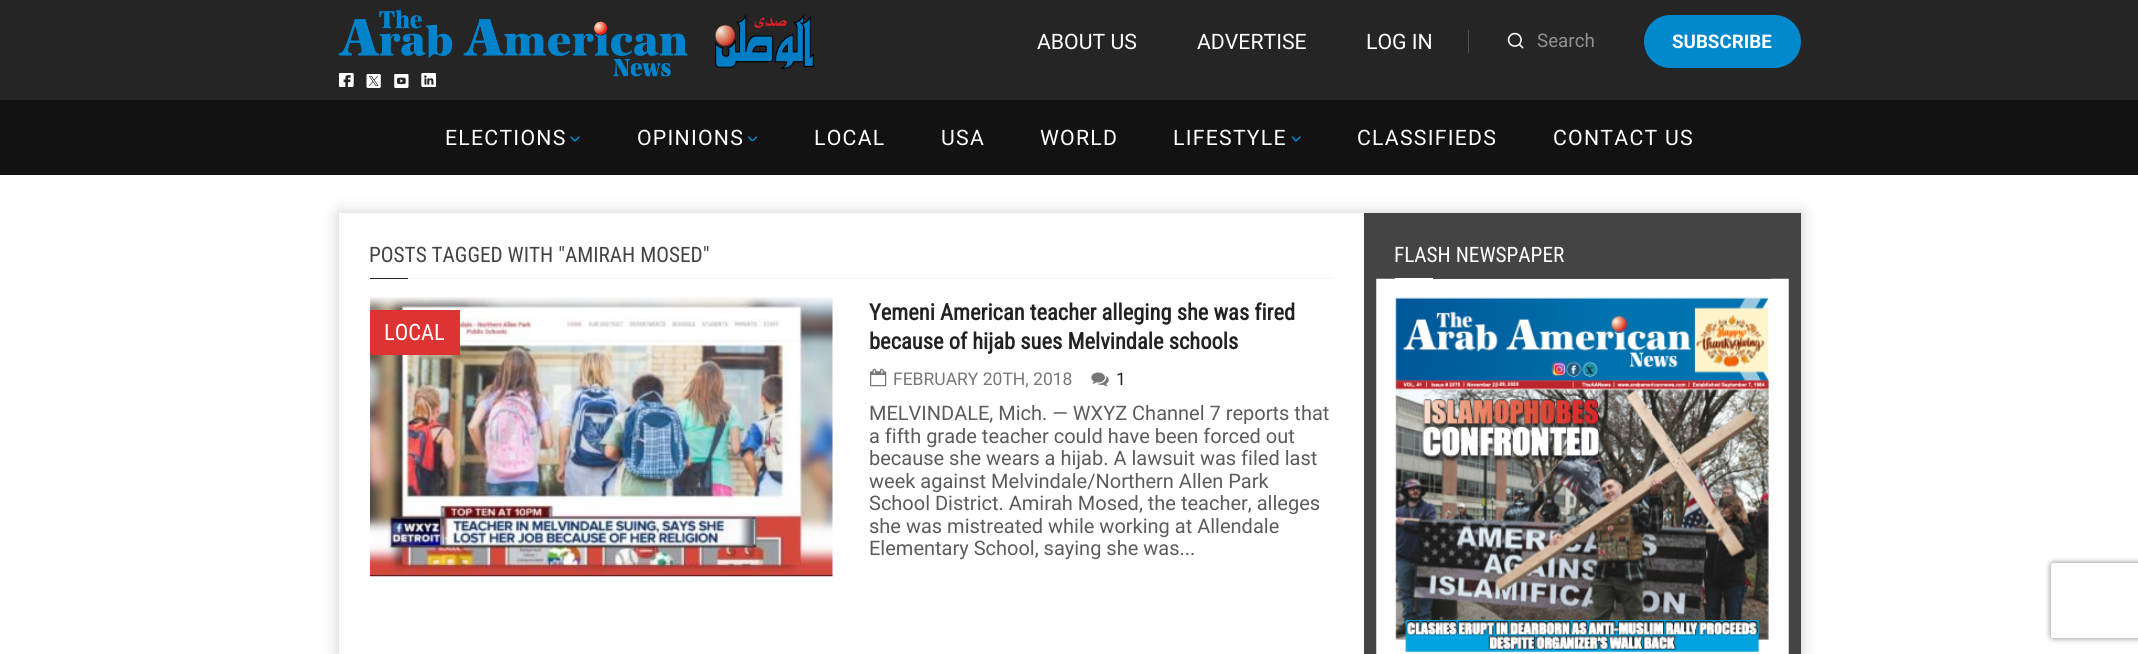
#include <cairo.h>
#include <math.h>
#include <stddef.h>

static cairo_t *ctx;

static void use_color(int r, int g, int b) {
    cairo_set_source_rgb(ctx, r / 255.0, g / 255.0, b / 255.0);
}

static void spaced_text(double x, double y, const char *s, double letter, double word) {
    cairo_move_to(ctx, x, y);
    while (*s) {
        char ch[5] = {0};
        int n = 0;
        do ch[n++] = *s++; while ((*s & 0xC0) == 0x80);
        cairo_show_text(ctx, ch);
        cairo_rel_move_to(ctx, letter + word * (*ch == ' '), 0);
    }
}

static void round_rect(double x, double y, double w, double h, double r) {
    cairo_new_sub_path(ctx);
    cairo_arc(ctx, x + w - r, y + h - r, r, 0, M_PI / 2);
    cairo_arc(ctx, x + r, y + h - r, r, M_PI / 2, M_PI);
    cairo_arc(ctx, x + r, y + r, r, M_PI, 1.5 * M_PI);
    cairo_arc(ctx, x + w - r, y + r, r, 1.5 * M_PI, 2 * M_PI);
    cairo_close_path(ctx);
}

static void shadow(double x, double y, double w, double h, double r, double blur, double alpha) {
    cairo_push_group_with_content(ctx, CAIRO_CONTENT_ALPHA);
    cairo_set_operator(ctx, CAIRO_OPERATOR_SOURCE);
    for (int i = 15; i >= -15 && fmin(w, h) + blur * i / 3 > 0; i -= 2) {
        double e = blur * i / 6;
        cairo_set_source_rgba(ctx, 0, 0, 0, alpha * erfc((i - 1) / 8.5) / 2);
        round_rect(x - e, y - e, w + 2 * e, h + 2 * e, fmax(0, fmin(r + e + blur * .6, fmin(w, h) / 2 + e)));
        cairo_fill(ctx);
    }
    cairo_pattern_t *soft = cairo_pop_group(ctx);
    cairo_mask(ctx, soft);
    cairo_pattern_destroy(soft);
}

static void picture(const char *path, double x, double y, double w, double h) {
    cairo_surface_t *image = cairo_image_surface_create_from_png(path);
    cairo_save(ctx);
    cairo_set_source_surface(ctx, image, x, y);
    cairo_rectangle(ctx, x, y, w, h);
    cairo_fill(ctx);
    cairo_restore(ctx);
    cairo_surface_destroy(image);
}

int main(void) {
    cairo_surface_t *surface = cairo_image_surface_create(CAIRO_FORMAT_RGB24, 2138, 654);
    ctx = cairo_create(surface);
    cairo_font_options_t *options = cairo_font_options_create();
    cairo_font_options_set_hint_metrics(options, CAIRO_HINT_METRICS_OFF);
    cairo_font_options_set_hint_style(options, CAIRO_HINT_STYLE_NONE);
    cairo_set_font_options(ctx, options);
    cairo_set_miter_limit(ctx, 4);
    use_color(255, 255, 255);
    cairo_paint(ctx);
    use_color(37, 37, 37);
    cairo_rectangle(ctx, 0, 0, 2138, 100);
    cairo_fill(ctx);
    picture("img1.png", 338, 10, 350, 67);
    picture("img2.png", 715, 14, 99, 55);
    use_color(81, 81, 81);
    cairo_rectangle(ctx, 1468, 30, 1, 23);
    cairo_fill(ctx);
    cairo_select_font_face(ctx, "Roboto", CAIRO_FONT_SLANT_NORMAL, CAIRO_FONT_WEIGHT_NORMAL);
    cairo_set_font_size(ctx, 21.25);
    use_color(255, 255, 255);
    cairo_move_to(ctx, 1037, 49);
    cairo_show_text(ctx, "ABOUT US");
    cairo_move_to(ctx, 1197, 49);
    cairo_show_text(ctx, "ADVERTISE");
    cairo_move_to(ctx, 1366, 49);
    cairo_show_text(ctx, "LOG IN");
    picture("img3.png", 1507, 32, 17, 17);
    cairo_set_font_size(ctx, 18.75);
    use_color(146, 146, 146);
    cairo_move_to(ctx, 1537, 47);
    cairo_show_text(ctx, "Search");
    use_color(0, 136, 205);
    round_rect(1644, 15, 157, 53, 26.5);
    cairo_fill(ctx);
    cairo_select_font_face(ctx, "Roboto", CAIRO_FONT_SLANT_NORMAL, CAIRO_FONT_WEIGHT_BOLD);
    use_color(255, 255, 255);
    cairo_move_to(ctx, 1672, 48);
    cairo_show_text(ctx, "SUBSCRIBE");
    picture("img4.png", 339, 73, 15, 14);
    picture("img5.png", 366, 74, 15, 14);
    picture("img6.png", 394, 74, 15, 14);
    picture("img7.png", 421, 73, 15, 14);
    use_color(18, 18, 18);
    cairo_rectangle(ctx, 0, 100, 2138, 75);
    cairo_fill(ctx);
    cairo_select_font_face(ctx, "Roboto", CAIRO_FONT_SLANT_NORMAL, CAIRO_FONT_WEIGHT_NORMAL);
    cairo_set_font_size(ctx, 21.25);
    use_color(255, 255, 255);
    spaced_text(445, 145, "ELECTIONS", 1.25, 0);
    cairo_new_path(ctx);
    cairo_move_to(ctx, 579, 137);
    cairo_line_to(ctx, 575, 141);
    cairo_line_to(ctx, 571, 137);
    use_color(0, 136, 205);
    cairo_set_line_width(ctx, 1.5);
    cairo_set_line_cap(ctx, CAIRO_LINE_CAP_ROUND);
    cairo_set_line_join(ctx, CAIRO_LINE_JOIN_ROUND);
    cairo_stroke(ctx);
    use_color(255, 255, 255);
    spaced_text(637, 145, "OPINIONS", 1.25, 0);
    cairo_save(ctx);
    cairo_rectangle(ctx, 748, 136, 10, 5);
    cairo_clip(ctx);
    cairo_new_path(ctx);
    cairo_move_to(ctx, 756.5, 137);
    cairo_line_to(ctx, 752.5, 141);
    cairo_line_to(ctx, 748.5, 137);
    use_color(0, 136, 205);
    cairo_stroke(ctx);
    cairo_restore(ctx);
    spaced_text(814, 145, "LOCAL", 1.25, 0);
    spaced_text(941, 145, "USA", 1.25, 0);
    spaced_text(1040, 145, "WORLD", 1.25, 0);
    spaced_text(1173, 145, "LIFESTYLE", 1.25, 0);
    cairo_new_path(ctx);
    cairo_move_to(ctx, 1300, 137);
    cairo_line_to(ctx, 1296, 141);
    cairo_line_to(ctx, 1292.5, 137);
    use_color(0, 136, 205);
    cairo_stroke(ctx);
    use_color(255, 255, 255);
    spaced_text(1357, 145, "CLASSIFIEDS", 1.25, 0);
    spaced_text(1553, 145, "CONTACT US", 1.25, 0);
    cairo_save(ctx);
    cairo_set_fill_rule(ctx, CAIRO_FILL_RULE_EVEN_ODD);
    cairo_new_path(ctx);
    cairo_move_to(ctx, 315, 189);
    cairo_line_to(ctx, 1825, 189);
    cairo_line_to(ctx, 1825, 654);
    cairo_line_to(ctx, 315, 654);
    cairo_close_path(ctx);
    cairo_move_to(ctx, 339, 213);
    cairo_line_to(ctx, 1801, 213);
    cairo_line_to(ctx, 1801, 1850);
    cairo_line_to(ctx, 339, 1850);
    cairo_close_path(ctx);
    cairo_clip(ctx);
    use_color(204, 204, 204);
    shadow(339, 213, 1462, 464, 0, 7.5, 1);
    cairo_restore(ctx);
    use_color(245, 245, 245);
    cairo_rectangle(ctx, 408, 278, 925, 1);
    cairo_fill(ctx);
    cairo_select_font_face(ctx, "Roboto Condensed", CAIRO_FONT_SLANT_NORMAL, CAIRO_FONT_WEIGHT_NORMAL);
    use_color(68, 68, 68);
    cairo_move_to(ctx, 369, 262);
    cairo_show_text(ctx, "POSTS TAGGED WITH \"AMIRAH MOSED\"");
    use_color(34, 34, 34);
    cairo_rectangle(ctx, 370, 278, 38, 1);
    cairo_fill(ctx);
    picture("img8.png", 370, 297, 463, 280);
    use_color(221, 51, 51);
    cairo_rectangle(ctx, 370, 310, 90, 45);
    cairo_fill(ctx);
    cairo_set_font_size(ctx, 22.5);
    use_color(255, 255, 255);
    cairo_move_to(ctx, 384, 340);
    cairo_show_text(ctx, "LOCAL");
    cairo_select_font_face(ctx, "Roboto Condensed", CAIRO_FONT_SLANT_NORMAL, CAIRO_FONT_WEIGHT_BOLD);
    use_color(34, 34, 34);
    cairo_move_to(ctx, 869, 320);
    cairo_show_text(ctx, "Yemeni American teacher alleging she was fired");
    cairo_move_to(ctx, 869, 349);
    cairo_show_text(ctx, "because of hijab sues Melvindale schools");
    picture("img9.png", 870, 368, 17, 19);
    cairo_select_font_face(ctx, "Roboto", CAIRO_FONT_SLANT_NORMAL, CAIRO_FONT_WEIGHT_NORMAL);
    cairo_set_font_size(ctx, 17.5);
    use_color(119, 119, 119);
    cairo_move_to(ctx, 893, 385);
    cairo_show_text(ctx, "FEBRUARY 20TH, 2018");
    picture("img10.png", 1091, 372, 18, 15);
    use_color(34, 34, 34);
    cairo_move_to(ctx, 1116, 385);
    cairo_show_text(ctx, "1");
    cairo_set_font_size(ctx, 20);
    use_color(92, 92, 92);
    cairo_move_to(ctx, 869, 420);
    cairo_show_text(ctx, "MELVINDALE, Mich. — WXYZ Channel 7 reports that");
    cairo_move_to(ctx, 869, 443);
    cairo_show_text(ctx, "a fifth grade teacher could have been forced out");
    cairo_move_to(ctx, 869, 465);
    cairo_show_text(ctx, "because she wears a hijab. A lawsuit was filed last");
    cairo_move_to(ctx, 869, 488);
    cairo_show_text(ctx, "week against Melvindale/Northern Allen Park");
    cairo_move_to(ctx, 869, 510);
    cairo_show_text(ctx, "School District. Amirah Mosed, the teacher, alleges");
    cairo_move_to(ctx, 869, 533);
    cairo_show_text(ctx, "she was mistreated while working at Allendale");
    cairo_move_to(ctx, 869, 555);
    cairo_show_text(ctx, "Elementary School, saying she was...");
    use_color(68, 68, 68);
    cairo_rectangle(ctx, 1364, 213, 437, 441);
    cairo_fill(ctx);
    picture("img11.png", 1376, 278, 413, 376);
    use_color(78, 78, 78);
    cairo_rectangle(ctx, 1433, 278, 337, 1);
    cairo_fill(ctx);
    cairo_select_font_face(ctx, "Roboto Condensed", CAIRO_FONT_SLANT_NORMAL, CAIRO_FONT_WEIGHT_NORMAL);
    cairo_set_font_size(ctx, 21.25);
    use_color(255, 255, 255);
    cairo_move_to(ctx, 1394, 262);
    cairo_show_text(ctx, "FLASH NEWSPAPER");
    cairo_rectangle(ctx, 1395, 278, 38, 1);
    cairo_fill(ctx);
    cairo_save(ctx);
    cairo_set_fill_rule(ctx, CAIRO_FILL_RULE_EVEN_ODD);
    cairo_new_path(ctx);
    cairo_move_to(ctx, 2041, 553);
    cairo_line_to(ctx, 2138, 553);
    cairo_line_to(ctx, 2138, 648);
    cairo_line_to(ctx, 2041, 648);
    cairo_close_path(ctx);
    cairo_move_to(ctx, 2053.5, 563);
    cairo_line_to(ctx, 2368.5, 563);
    cairo_curve_to(ctx, 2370, 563, 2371, 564, 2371, 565.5);
    cairo_line_to(ctx, 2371, 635.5);
    cairo_curve_to(ctx, 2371, 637, 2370, 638, 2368.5, 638);
    cairo_line_to(ctx, 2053.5, 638);
    cairo_curve_to(ctx, 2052, 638, 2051, 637, 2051, 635.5);
    cairo_line_to(ctx, 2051, 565.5);
    cairo_curve_to(ctx, 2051, 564, 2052, 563, 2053.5, 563);
    cairo_close_path(ctx);
    cairo_clip(ctx);
    use_color(128, 128, 128);
    shadow(2051, 563, 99, 75, 2.5, 3, 1);
    cairo_restore(ctx);
    cairo_surface_write_to_png(surface, "result.png");
    cairo_font_options_destroy(options);
    cairo_destroy(ctx);
    cairo_surface_destroy(surface);
    return 0;
}
